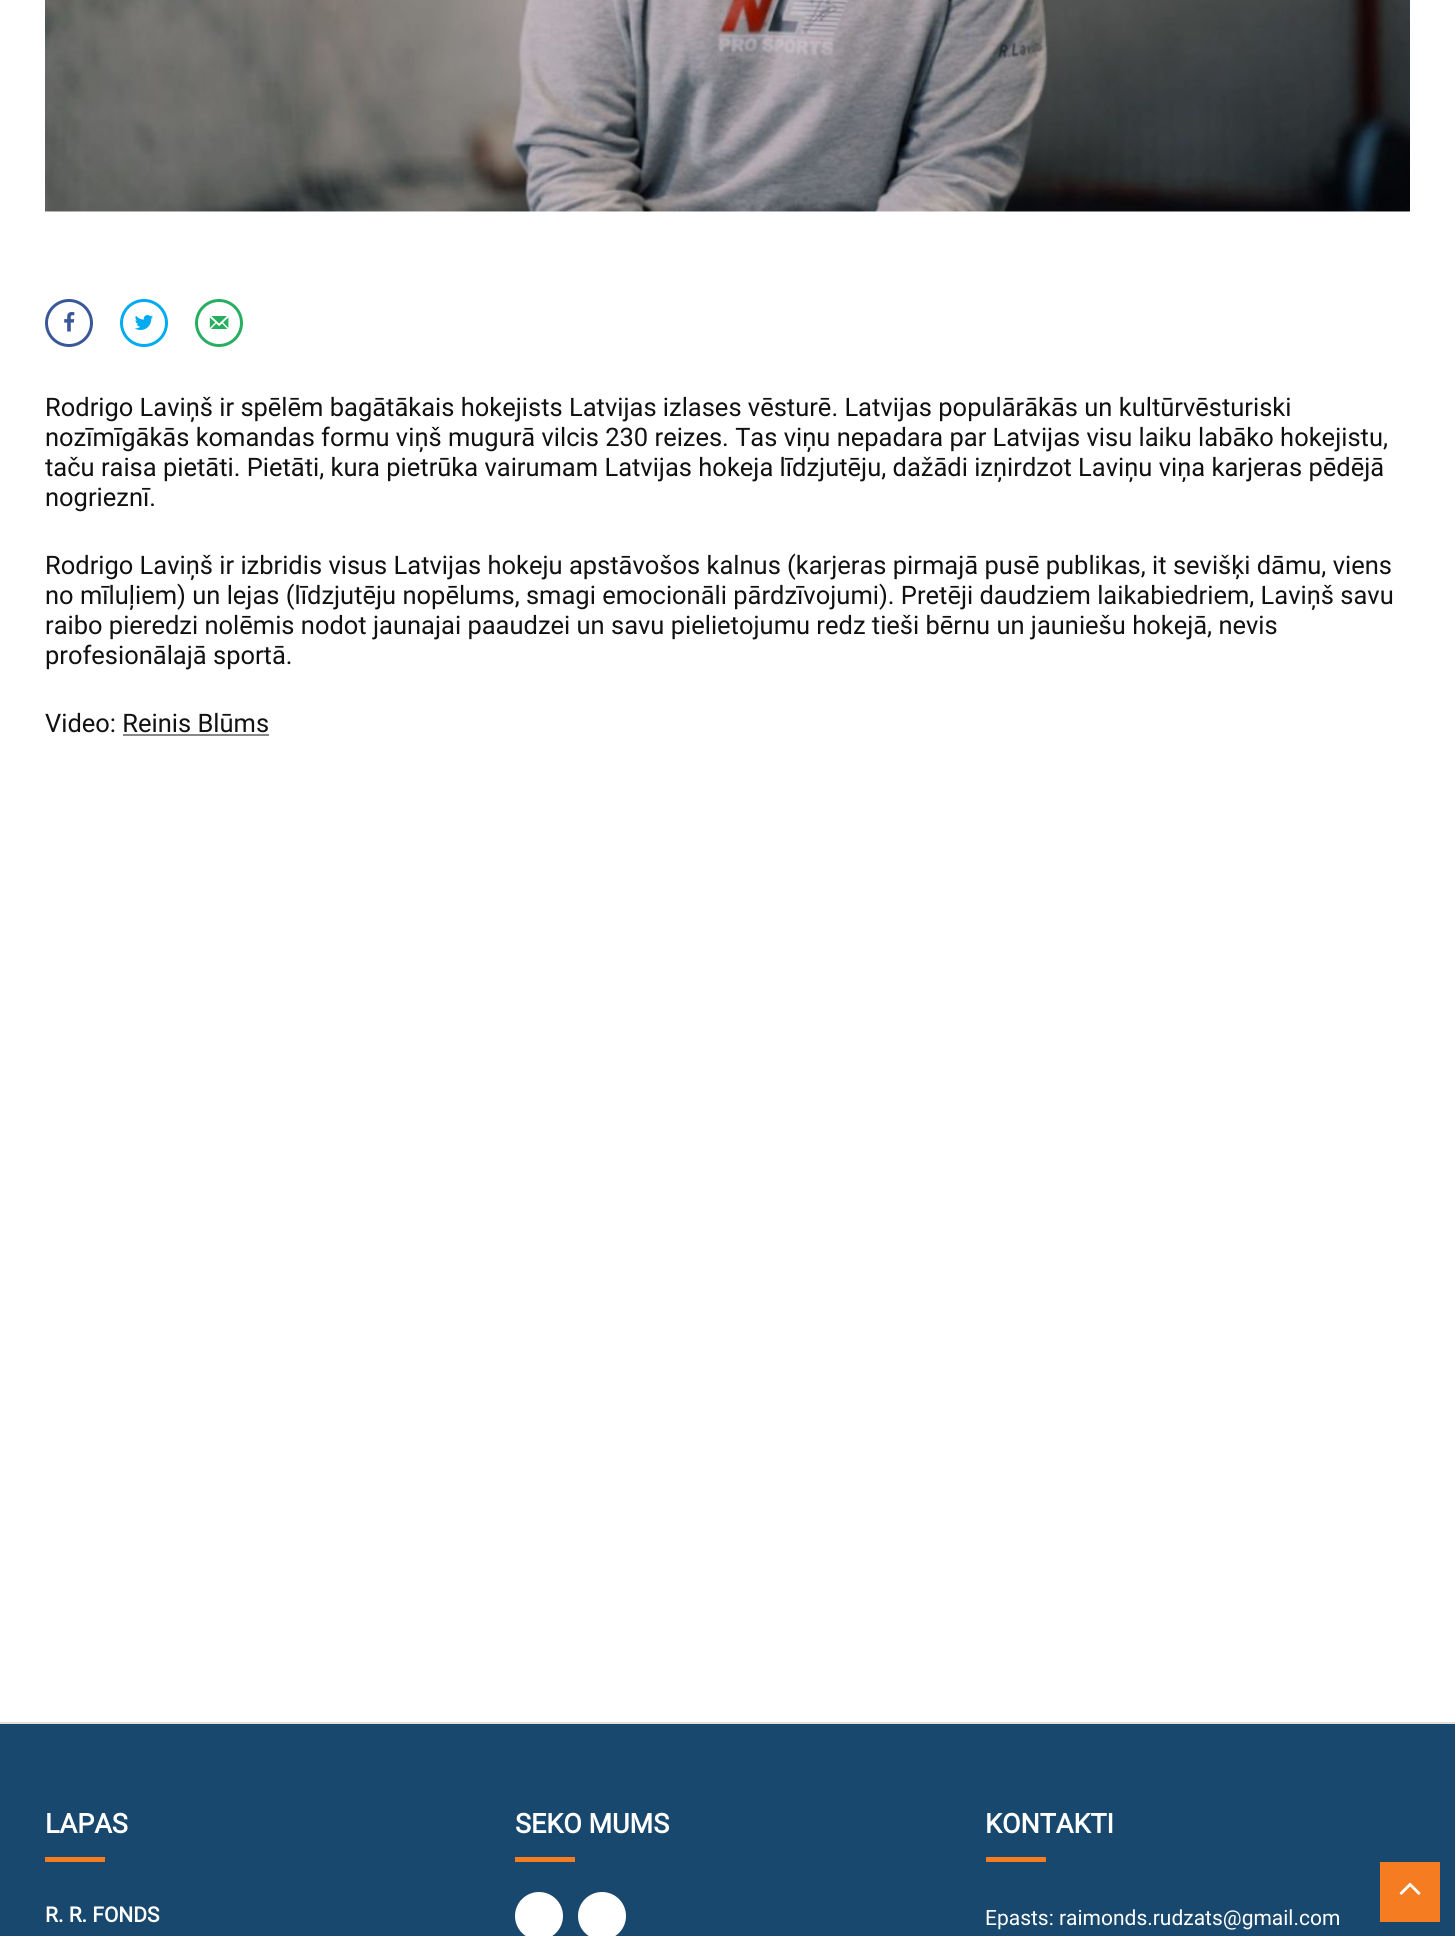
#include <cairo.h>
#include <math.h>
#include <stddef.h>

static cairo_t *ctx;

static void use_color(int r, int g, int b) {
    cairo_set_source_rgb(ctx, r / 255.0, g / 255.0, b / 255.0);
}

static void picture(const char *path, double x, double y, double w, double h) {
    cairo_surface_t *image = cairo_image_surface_create_from_png(path);
    cairo_save(ctx);
    cairo_set_source_surface(ctx, image, x, y);
    cairo_rectangle(ctx, x, y, w, h);
    cairo_fill(ctx);
    cairo_restore(ctx);
    cairo_surface_destroy(image);
}

int main(void) {
    cairo_surface_t *surface = cairo_image_surface_create(CAIRO_FORMAT_RGB24, 1455, 1936);
    ctx = cairo_create(surface);
    cairo_font_options_t *options = cairo_font_options_create();
    cairo_font_options_set_hint_metrics(options, CAIRO_HINT_METRICS_OFF);
    cairo_font_options_set_hint_style(options, CAIRO_HINT_STYLE_NONE);
    cairo_set_font_options(ctx, options);
    cairo_set_miter_limit(ctx, 4);
    use_color(255, 255, 255);
    cairo_paint(ctx);
    picture("img1.png", 45, 0, 1365, 212);
    cairo_arc(ctx, 69, 323, 22.5, 0, 2 * M_PI);
    use_color(58, 87, 154);
    cairo_set_line_width(ctx, 3);
    cairo_stroke(ctx);
    picture("img2.png", 64, 312, 11, 20);
    cairo_arc(ctx, 144, 323, 22.5, 0, 2 * M_PI);
    use_color(0, 171, 240);
    cairo_stroke(ctx);
    picture("img3.png", 134, 315, 19, 15);
    cairo_arc(ctx, 219, 323, 22.5, 0, 2 * M_PI);
    use_color(39, 174, 96);
    cairo_stroke(ctx);
    picture("img4.png", 209, 316, 20, 13);
    cairo_select_font_face(ctx, "Roboto", CAIRO_FONT_SLANT_NORMAL, CAIRO_FONT_WEIGHT_NORMAL);
    cairo_set_font_size(ctx, 25.5);
    use_color(17, 17, 17);
    cairo_move_to(ctx, 45, 416);
    cairo_show_text(ctx, "Rodrigo Laviņš ir spēlēm bagātākais hokejists Latvijas izlases vēsturē. Latvijas populārākās un kultūrvēsturiski");
    cairo_move_to(ctx, 45, 446);
    cairo_show_text(ctx, "nozīmīgākās komandas formu viņš mugurā vilcis 230 reizes. Tas viņu nepadara par Latvijas visu laiku labāko hokejistu,");
    cairo_move_to(ctx, 45, 476);
    cairo_show_text(ctx, "taču raisa pietāti. Pietāti, kura pietrūka vairumam Latvijas hokeja līdzjutēju, dažādi izņirdzot Laviņu viņa karjeras pēdējā");
    cairo_move_to(ctx, 45, 506);
    cairo_show_text(ctx, "nogrieznī.");
    cairo_move_to(ctx, 45, 574);
    cairo_show_text(ctx, "Rodrigo Laviņš ir izbridis visus Latvijas hokeju apstāvošos kalnus (karjeras pirmajā pusē publikas, it sevišķi dāmu, viens");
    cairo_move_to(ctx, 45, 604);
    cairo_show_text(ctx, "no mīluļiem) un lejas (līdzjutēju nopēlums, smagi emocionāli pārdzīvojumi). Pretēji daudziem laikabiedriem, Laviņš savu");
    cairo_move_to(ctx, 45, 634);
    cairo_show_text(ctx, "raibo pieredzi nolēmis nodot jaunajai paaudzei un savu pielietojumu redz tieši bērnu un jauniešu hokejā, nevis");
    cairo_move_to(ctx, 45, 664);
    cairo_show_text(ctx, "profesionālajā sportā.");
    cairo_move_to(ctx, 45, 732);
    cairo_show_text(ctx, "Video: Reinis Blūms");
    use_color(136, 136, 136);
    cairo_rectangle(ctx, 123, 734, 146, 2);
    cairo_fill(ctx);
    use_color(24, 72, 109);
    cairo_rectangle(ctx, 0, 1724, 1455, 212);
    cairo_fill(ctx);
    use_color(222, 222, 222);
    cairo_rectangle(ctx, 0, 1722, 1455, 2);
    cairo_fill(ctx);
    cairo_select_font_face(ctx, "Roboto", CAIRO_FONT_SLANT_NORMAL, CAIRO_FONT_WEIGHT_BOLD);
    cairo_set_font_size(ctx, 27);
    use_color(255, 255, 255);
    cairo_move_to(ctx, 45, 1833);
    cairo_show_text(ctx, "LAPAS");
    use_color(245, 124, 33);
    cairo_rectangle(ctx, 45, 1857, 60, 5);
    cairo_fill(ctx);
    cairo_set_font_size(ctx, 21);
    use_color(255, 255, 255);
    cairo_move_to(ctx, 45, 1922);
    cairo_show_text(ctx, "R. R. FONDS");
    cairo_set_font_size(ctx, 27);
    cairo_move_to(ctx, 515, 1833);
    cairo_show_text(ctx, "SEKO MUMS");
    use_color(245, 124, 33);
    cairo_rectangle(ctx, 515, 1857, 60, 5);
    cairo_fill(ctx);
    use_color(255, 255, 255);
    cairo_arc(ctx, 539, 1916, 24, 0, 2 * M_PI);
    cairo_fill(ctx);
    cairo_arc(ctx, 602, 1916, 24, 0, 2 * M_PI);
    cairo_fill(ctx);
    cairo_move_to(ctx, 985, 1833);
    cairo_show_text(ctx, "KONTAKTI");
    use_color(245, 124, 33);
    cairo_rectangle(ctx, 986, 1857, 60, 5);
    cairo_fill(ctx);
    cairo_select_font_face(ctx, "Roboto", CAIRO_FONT_SLANT_NORMAL, CAIRO_FONT_WEIGHT_NORMAL);
    cairo_set_font_size(ctx, 21);
    use_color(255, 255, 255);
    cairo_move_to(ctx, 985, 1925);
    cairo_show_text(ctx, "Epasts: raimonds.rudzats@gmail.com");
    use_color(245, 124, 33);
    cairo_rectangle(ctx, 1380, 1862, 60, 60);
    cairo_fill(ctx);
    picture("img5.png", 1399, 1882, 22, 13);
    cairo_surface_write_to_png(surface, "result.png");
    cairo_font_options_destroy(options);
    cairo_destroy(ctx);
    cairo_surface_destroy(surface);
    return 0;
}
